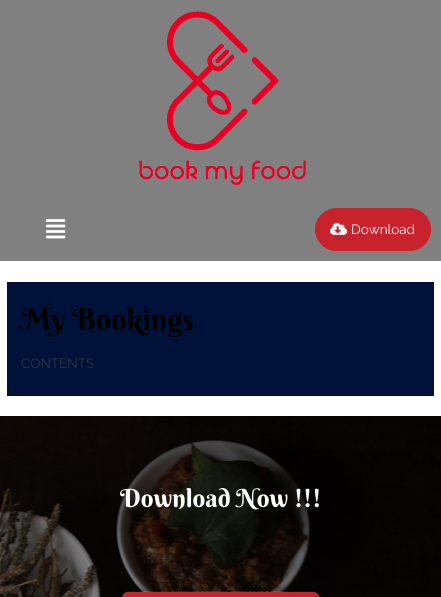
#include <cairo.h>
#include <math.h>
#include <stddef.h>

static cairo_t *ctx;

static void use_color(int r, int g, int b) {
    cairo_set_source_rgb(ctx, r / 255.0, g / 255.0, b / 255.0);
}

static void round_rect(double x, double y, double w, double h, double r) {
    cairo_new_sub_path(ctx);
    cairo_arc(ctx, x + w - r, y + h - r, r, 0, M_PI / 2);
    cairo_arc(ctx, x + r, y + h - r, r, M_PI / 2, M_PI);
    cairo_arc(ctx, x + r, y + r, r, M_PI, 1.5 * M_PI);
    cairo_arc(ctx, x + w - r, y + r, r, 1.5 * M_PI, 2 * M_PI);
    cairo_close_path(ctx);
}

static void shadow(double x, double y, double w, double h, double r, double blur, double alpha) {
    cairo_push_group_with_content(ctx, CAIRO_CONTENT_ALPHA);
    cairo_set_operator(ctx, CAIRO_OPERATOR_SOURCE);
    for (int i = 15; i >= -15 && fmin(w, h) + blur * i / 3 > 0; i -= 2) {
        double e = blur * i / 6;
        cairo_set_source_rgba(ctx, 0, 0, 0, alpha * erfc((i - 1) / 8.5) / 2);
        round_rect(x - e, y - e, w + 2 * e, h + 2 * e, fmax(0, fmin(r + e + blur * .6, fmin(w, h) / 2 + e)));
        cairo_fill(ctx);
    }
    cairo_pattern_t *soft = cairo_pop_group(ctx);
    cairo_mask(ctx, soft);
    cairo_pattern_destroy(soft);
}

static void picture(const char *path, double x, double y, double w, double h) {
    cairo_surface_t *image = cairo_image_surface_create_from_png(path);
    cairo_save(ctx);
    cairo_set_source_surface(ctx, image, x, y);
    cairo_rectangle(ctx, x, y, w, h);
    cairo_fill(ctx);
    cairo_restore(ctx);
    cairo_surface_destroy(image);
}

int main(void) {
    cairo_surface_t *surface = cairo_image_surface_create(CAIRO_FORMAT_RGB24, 441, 597);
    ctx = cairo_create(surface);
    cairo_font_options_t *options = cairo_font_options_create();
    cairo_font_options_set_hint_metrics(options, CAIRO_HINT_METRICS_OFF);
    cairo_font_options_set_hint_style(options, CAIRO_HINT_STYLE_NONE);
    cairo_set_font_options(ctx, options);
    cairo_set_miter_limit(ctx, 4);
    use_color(255, 255, 255);
    cairo_paint(ctx);
    use_color(128, 128, 128);
    cairo_rectangle(ctx, 0, 0, 441, 261);
    cairo_fill(ctx);
    picture("img1.png", 139, 11, 167, 174);
    picture("img2.png", 46, 219, 20, 20);
    use_color(200, 35, 44);
    round_rect(315, 208, 116, 43, 21.5);
    cairo_fill(ctx);
    picture("img3.png", 330, 222, 18, 13);
    cairo_select_font_face(ctx, "Raleway", CAIRO_FONT_SLANT_NORMAL, CAIRO_FONT_WEIGHT_NORMAL);
    cairo_set_font_size(ctx, 13.5);
    use_color(255, 255, 255);
    cairo_move_to(ctx, 351, 234);
    cairo_show_text(ctx, "Download");
    use_color(0, 18, 58);
    cairo_rectangle(ctx, 7, 282, 427, 114);
    cairo_fill(ctx);
    cairo_select_font_face(ctx, "Berkshire Swash", CAIRO_FONT_SLANT_NORMAL, CAIRO_FONT_WEIGHT_NORMAL);
    cairo_set_font_size(ctx, 30);
    use_color(0, 0, 0);
    cairo_move_to(ctx, 21, 330);
    cairo_show_text(ctx, "My Bookings");
    cairo_select_font_face(ctx, "Raleway", CAIRO_FONT_SLANT_NORMAL, CAIRO_FONT_WEIGHT_NORMAL);
    cairo_set_font_size(ctx, 13.5);
    use_color(49, 51, 56);
    cairo_move_to(ctx, 21, 368);
    cairo_show_text(ctx, "CONTENTS");
    picture("img4.png", 0, 416, 441, 181);
    cairo_select_font_face(ctx, "Berkshire Swash", CAIRO_FONT_SLANT_NORMAL, CAIRO_FONT_WEIGHT_NORMAL);
    cairo_set_font_size(ctx, 25);
    use_color(255, 255, 255);
    cairo_move_to(ctx, 120, 507);
    cairo_show_text(ctx, "Download Now !!!");
    cairo_save(ctx);
    cairo_set_fill_rule(ctx, CAIRO_FILL_RULE_EVEN_ODD);
    cairo_new_path(ctx);
    cairo_move_to(ctx, 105, 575);
    cairo_line_to(ctx, 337, 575);
    cairo_line_to(ctx, 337, 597);
    cairo_line_to(ctx, 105, 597);
    cairo_close_path(ctx);
    cairo_move_to(ctx, 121, 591);
    cairo_line_to(ctx, 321, 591);
    cairo_line_to(ctx, 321, 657);
    cairo_line_to(ctx, 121, 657);
    cairo_close_path(ctx);
    cairo_clip(ctx);
    use_color(0, 0, 0);
    shadow(121, 591, 200, 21, 0, 5, 0.5);
    cairo_restore(ctx);
    picture("img5.png", 122, 591, 198, 6);
    cairo_surface_write_to_png(surface, "result.png");
    cairo_font_options_destroy(options);
    cairo_destroy(ctx);
    cairo_surface_destroy(surface);
    return 0;
}
